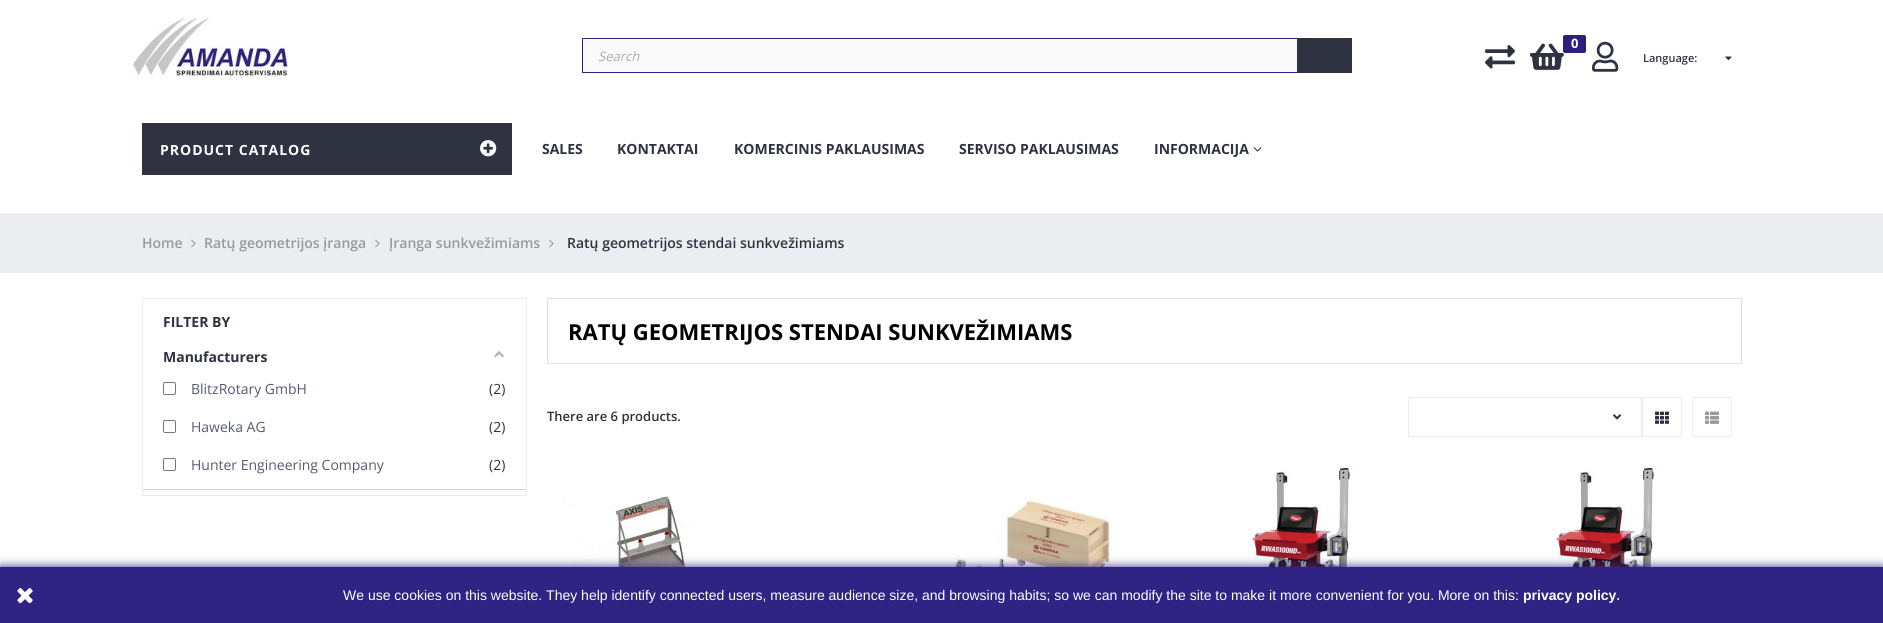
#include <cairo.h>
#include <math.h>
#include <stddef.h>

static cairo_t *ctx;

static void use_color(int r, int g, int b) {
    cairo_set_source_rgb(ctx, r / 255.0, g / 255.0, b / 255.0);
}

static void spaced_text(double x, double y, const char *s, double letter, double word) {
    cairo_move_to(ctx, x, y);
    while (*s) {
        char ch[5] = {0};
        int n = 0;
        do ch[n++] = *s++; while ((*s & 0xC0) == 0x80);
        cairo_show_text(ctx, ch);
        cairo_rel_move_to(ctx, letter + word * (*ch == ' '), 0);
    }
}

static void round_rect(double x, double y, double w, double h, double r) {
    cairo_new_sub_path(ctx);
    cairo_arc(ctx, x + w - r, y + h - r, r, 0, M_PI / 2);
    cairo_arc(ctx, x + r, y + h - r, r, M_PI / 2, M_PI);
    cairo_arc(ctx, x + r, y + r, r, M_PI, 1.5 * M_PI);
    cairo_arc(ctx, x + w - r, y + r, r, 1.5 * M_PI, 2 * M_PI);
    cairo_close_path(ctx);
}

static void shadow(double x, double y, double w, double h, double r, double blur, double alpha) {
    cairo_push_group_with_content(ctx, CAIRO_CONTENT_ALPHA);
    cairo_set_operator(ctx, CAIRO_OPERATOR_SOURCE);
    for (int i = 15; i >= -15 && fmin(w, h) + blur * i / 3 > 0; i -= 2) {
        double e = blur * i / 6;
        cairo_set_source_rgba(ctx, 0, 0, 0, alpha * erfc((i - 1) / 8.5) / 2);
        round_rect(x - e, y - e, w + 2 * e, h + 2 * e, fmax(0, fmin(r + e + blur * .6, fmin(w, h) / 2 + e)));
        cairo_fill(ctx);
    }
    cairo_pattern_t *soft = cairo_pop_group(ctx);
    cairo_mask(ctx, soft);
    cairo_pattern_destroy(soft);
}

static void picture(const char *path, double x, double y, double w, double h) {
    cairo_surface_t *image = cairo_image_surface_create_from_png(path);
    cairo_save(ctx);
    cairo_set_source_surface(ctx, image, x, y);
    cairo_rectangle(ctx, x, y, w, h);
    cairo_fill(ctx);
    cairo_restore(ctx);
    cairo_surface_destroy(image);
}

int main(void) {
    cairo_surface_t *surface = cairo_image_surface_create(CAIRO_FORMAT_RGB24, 1883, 623);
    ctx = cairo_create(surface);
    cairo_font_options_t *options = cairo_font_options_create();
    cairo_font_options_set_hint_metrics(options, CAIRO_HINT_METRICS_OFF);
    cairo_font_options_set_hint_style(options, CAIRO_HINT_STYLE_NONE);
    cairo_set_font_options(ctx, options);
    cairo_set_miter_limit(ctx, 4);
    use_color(255, 255, 255);
    cairo_paint(ctx);
    use_color(239, 239, 239);
    cairo_rectangle(ctx, 0, 213, 1883, 1);
    cairo_fill(ctx);
    picture("img1.png", 133, 17, 155, 61);
    use_color(250, 250, 250);
    cairo_rectangle(ctx, 583, 39, 714, 33);
    cairo_fill(ctx);
    cairo_rectangle(ctx, 582.5, 38.5, 769, 34);
    use_color(47, 36, 132);
    cairo_set_line_width(ctx, 1);
    cairo_stroke(ctx);
    cairo_select_font_face(ctx, "Open Sans", CAIRO_FONT_SLANT_ITALIC, CAIRO_FONT_WEIGHT_NORMAL);
    cairo_set_font_size(ctx, 13);
    use_color(170, 170, 170);
    cairo_move_to(ctx, 598, 61);
    cairo_show_text(ctx, "Search");
    use_color(47, 50, 65);
    cairo_rectangle(ctx, 1297, 38, 55, 35);
    cairo_fill(ctx);
    picture("img2.png", 1485, 45, 30, 24);
    picture("img3.png", 1530, 43, 34, 27);
    use_color(45, 31, 126);
    round_rect(1563, 35, 23, 18, 2);
    cairo_fill(ctx);
    cairo_select_font_face(ctx, "Open Sans", CAIRO_FONT_SLANT_NORMAL, CAIRO_FONT_WEIGHT_BOLD);
    use_color(255, 255, 255);
    cairo_move_to(ctx, 1571, 48);
    cairo_show_text(ctx, "0");
    picture("img4.png", 1592, 41, 27, 31);
    cairo_select_font_face(ctx, "Open Sans SemiBold", CAIRO_FONT_SLANT_NORMAL, CAIRO_FONT_WEIGHT_NORMAL);
    cairo_set_font_size(ctx, 11);
    use_color(47, 50, 65);
    cairo_move_to(ctx, 1643, 62);
    cairo_show_text(ctx, "Language:");
    picture("img5.png", 1725, 56, 7, 5);
    cairo_rectangle(ctx, 142, 123, 370, 52);
    cairo_fill(ctx);
    cairo_select_font_face(ctx, "Open Sans", CAIRO_FONT_SLANT_NORMAL, CAIRO_FONT_WEIGHT_BOLD);
    cairo_set_font_size(ctx, 14);
    use_color(255, 255, 255);
    spaced_text(160, 155, "PRODUCT CATALOG", 1, 0);
    picture("img6.png", 480, 140, 17, 17);
    use_color(47, 50, 65);
    cairo_move_to(ctx, 542, 154);
    cairo_show_text(ctx, "SALES");
    cairo_move_to(ctx, 617, 154);
    cairo_show_text(ctx, "KONTAKTAI");
    cairo_move_to(ctx, 734, 154);
    cairo_show_text(ctx, "KOMERCINIS PAKLAUSIMAS");
    cairo_move_to(ctx, 959, 154);
    cairo_show_text(ctx, "SERVISO PAKLAUSIMAS");
    cairo_move_to(ctx, 1154, 154);
    cairo_show_text(ctx, "INFORMACIJA");
    picture("img7.png", 1253, 147, 9, 5);
    use_color(236, 237, 241);
    cairo_rectangle(ctx, 0, 214, 1883, 59);
    cairo_fill(ctx);
    cairo_select_font_face(ctx, "Open Sans SemiBold", CAIRO_FONT_SLANT_NORMAL, CAIRO_FONT_WEIGHT_NORMAL);
    use_color(153, 153, 153);
    cairo_move_to(ctx, 142, 248);
    cairo_show_text(ctx, "Home");
    picture("img8.png", 191, 239, 5, 9);
    cairo_move_to(ctx, 204, 248);
    cairo_show_text(ctx, "Ratų geometrijos įranga");
    picture("img8.png", 375, 239, 5, 9);
    cairo_move_to(ctx, 389, 248);
    cairo_show_text(ctx, "Įranga sunkvežimiams");
    picture("img8.png", 549, 239, 5, 9);
    use_color(47, 50, 65);
    cairo_move_to(ctx, 567, 248);
    cairo_show_text(ctx, "Ratų geometrijos stendai sunkvežimiams");
    cairo_rectangle(ctx, 142.5, 298.5, 384, 197);
    use_color(236, 237, 241);
    cairo_stroke(ctx);
    cairo_select_font_face(ctx, "Open Sans", CAIRO_FONT_SLANT_NORMAL, CAIRO_FONT_WEIGHT_BOLD);
    use_color(47, 50, 65);
    cairo_move_to(ctx, 163, 327);
    cairo_show_text(ctx, "FILTER BY");
    use_color(208, 213, 219);
    cairo_rectangle(ctx, 143, 489, 383, 1);
    cairo_fill(ctx);
    use_color(47, 50, 65);
    cairo_move_to(ctx, 163, 362);
    cairo_show_text(ctx, "Manufacturers");
    use_color(170, 178, 189);
    cairo_new_path(ctx);
    cairo_move_to(ctx, 499, 351);
    cairo_line_to(ctx, 504, 356);
    cairo_line_to(ctx, 502.5, 357.5);
    cairo_line_to(ctx, 497.5, 352.5);
    cairo_close_path(ctx);
    cairo_fill(ctx);
    cairo_new_path(ctx);
    cairo_move_to(ctx, 499, 351);
    cairo_line_to(ctx, 500.5, 352.5);
    cairo_line_to(ctx, 495.5, 357.5);
    cairo_line_to(ctx, 494, 356);
    cairo_close_path(ctx);
    cairo_fill(ctx);
    round_rect(163.5, 382.5, 12, 12, 1.5);
    use_color(118, 118, 118);
    cairo_stroke(ctx);
    cairo_select_font_face(ctx, "Open Sans", CAIRO_FONT_SLANT_NORMAL, CAIRO_FONT_WEIGHT_NORMAL);
    use_color(86, 90, 113);
    cairo_move_to(ctx, 191, 394);
    cairo_show_text(ctx, "BlitzRotary GmbH");
    use_color(47, 50, 65);
    cairo_move_to(ctx, 489, 394);
    cairo_show_text(ctx, "(2)");
    round_rect(163.5, 420.5, 12, 12, 1.5);
    use_color(118, 118, 118);
    cairo_stroke(ctx);
    use_color(86, 90, 113);
    cairo_move_to(ctx, 191, 432);
    cairo_show_text(ctx, "Haweka AG");
    use_color(47, 50, 65);
    cairo_move_to(ctx, 489, 432);
    cairo_show_text(ctx, "(2)");
    round_rect(163.5, 458.5, 12, 12, 1.5);
    use_color(118, 118, 118);
    cairo_stroke(ctx);
    use_color(86, 90, 113);
    cairo_move_to(ctx, 191, 470);
    cairo_show_text(ctx, "Hunter Engineering Company");
    use_color(47, 50, 65);
    cairo_move_to(ctx, 489, 470);
    cairo_show_text(ctx, "(2)");
    cairo_rectangle(ctx, 547.5, 298.5, 1194, 65);
    use_color(223, 223, 223);
    cairo_stroke(ctx);
    cairo_select_font_face(ctx, "Open Sans", CAIRO_FONT_SLANT_NORMAL, CAIRO_FONT_WEIGHT_BOLD);
    cairo_set_font_size(ctx, 22);
    use_color(0, 0, 0);
    cairo_move_to(ctx, 568, 340);
    cairo_show_text(ctx, "RATŲ GEOMETRIJOS STENDAI SUNKVEŽIMIAMS");
    cairo_select_font_face(ctx, "Open Sans SemiBold", CAIRO_FONT_SLANT_NORMAL, CAIRO_FONT_WEIGHT_NORMAL);
    cairo_set_font_size(ctx, 13);
    use_color(47, 50, 65);
    cairo_move_to(ctx, 547, 421);
    cairo_show_text(ctx, "There are 6 products.");
    cairo_rectangle(ctx, 1408.5, 397.5, 233, 39);
    use_color(236, 237, 241);
    cairo_stroke(ctx);
    picture("img9.png", 1613, 414, 9, 6);
    cairo_rectangle(ctx, 1642.5, 397.5, 39, 39);
    cairo_stroke(ctx);
    picture("img10.png", 1655, 411, 14, 13);
    cairo_rectangle(ctx, 1692.5, 397.5, 39, 39);
    cairo_stroke(ctx);
    picture("img11.png", 1705, 411, 14, 13);
    picture("img12.png", 563, 495, 248, 72);
    picture("img13.png", 875, 497, 240, 70);
    picture("img14.png", 1251, 466, 104, 101);
    picture("img14.png", 1555, 466, 104, 101);
    use_color(47, 36, 132);
    shadow(0, 567, 1883, 56, 0, 5, 1);
    use_color(47, 36, 132);
    cairo_rectangle(ctx, 0, 567, 1883, 56);
    cairo_fill(ctx);
    picture("img15.png", 17, 588, 16, 16);
    cairo_select_font_face(ctx, "Liberation Sans", CAIRO_FONT_SLANT_NORMAL, CAIRO_FONT_WEIGHT_NORMAL);
    cairo_set_font_size(ctx, 14);
    use_color(255, 255, 255);
    cairo_move_to(ctx, 343, 600);
    cairo_show_text(ctx, "We use cookies on this website. They help identify connected users, measure audience size, and browsing habits; so we can modify the site to make it more convenient for you. More on this:");
    cairo_select_font_face(ctx, "Liberation Sans", CAIRO_FONT_SLANT_NORMAL, CAIRO_FONT_WEIGHT_BOLD);
    cairo_move_to(ctx, 1523, 600);
    cairo_show_text(ctx, "privacy policy.");
    cairo_surface_write_to_png(surface, "result.png");
    cairo_font_options_destroy(options);
    cairo_destroy(ctx);
    cairo_surface_destroy(surface);
    return 0;
}
